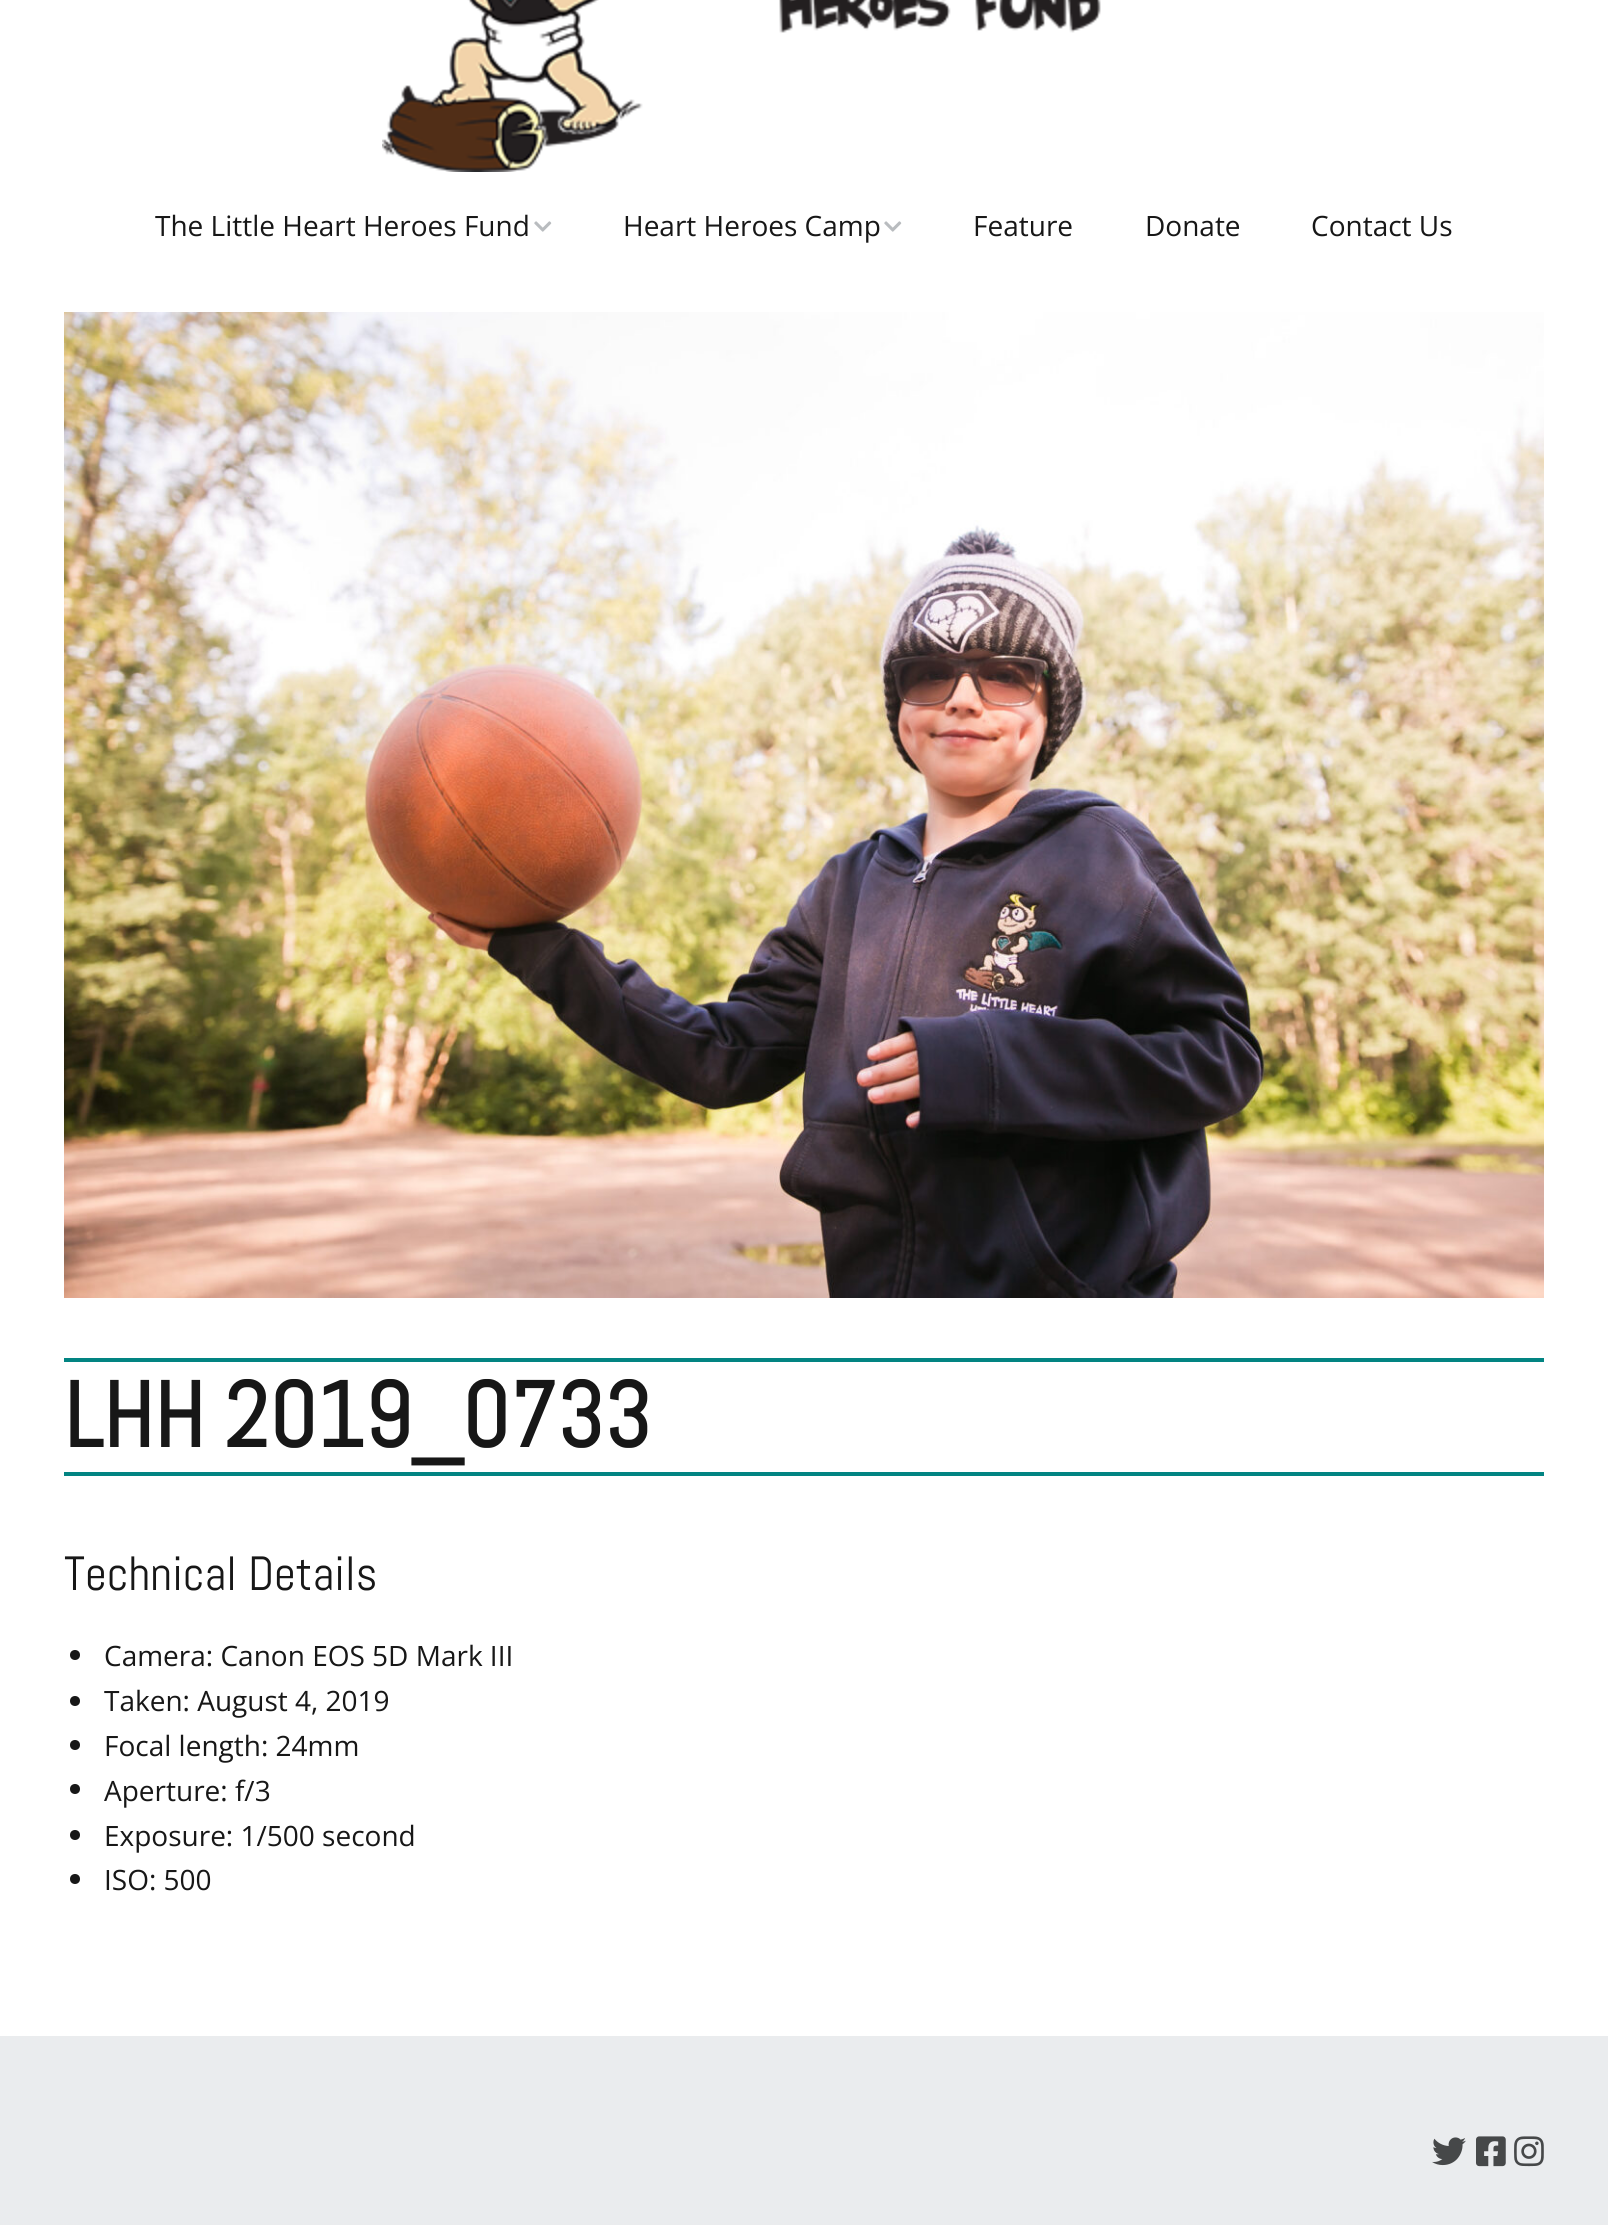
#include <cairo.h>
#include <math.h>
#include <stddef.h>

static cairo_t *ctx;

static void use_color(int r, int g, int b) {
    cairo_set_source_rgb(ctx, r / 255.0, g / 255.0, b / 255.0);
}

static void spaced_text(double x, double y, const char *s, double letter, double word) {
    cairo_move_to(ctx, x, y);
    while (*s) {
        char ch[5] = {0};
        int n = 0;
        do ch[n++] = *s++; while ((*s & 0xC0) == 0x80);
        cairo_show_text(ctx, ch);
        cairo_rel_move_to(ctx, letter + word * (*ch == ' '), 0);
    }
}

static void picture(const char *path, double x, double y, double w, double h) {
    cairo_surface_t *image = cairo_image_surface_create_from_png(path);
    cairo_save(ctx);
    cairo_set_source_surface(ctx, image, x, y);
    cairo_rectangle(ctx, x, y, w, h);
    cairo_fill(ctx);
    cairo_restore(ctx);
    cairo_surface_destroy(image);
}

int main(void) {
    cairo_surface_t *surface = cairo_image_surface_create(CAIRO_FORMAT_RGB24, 1608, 2225);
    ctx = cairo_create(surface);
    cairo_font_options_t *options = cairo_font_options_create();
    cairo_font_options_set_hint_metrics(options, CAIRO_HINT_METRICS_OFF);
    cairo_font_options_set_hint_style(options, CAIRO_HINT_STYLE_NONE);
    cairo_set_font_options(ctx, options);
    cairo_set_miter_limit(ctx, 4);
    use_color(255, 255, 255);
    cairo_paint(ctx);
    picture("img1.png", 382, 0, 719, 172);
    cairo_select_font_face(ctx, "Open Sans", CAIRO_FONT_SLANT_NORMAL, CAIRO_FONT_WEIGHT_NORMAL);
    cairo_set_font_size(ctx, 28);
    use_color(23, 23, 23);
    cairo_move_to(ctx, 155, 236);
    cairo_show_text(ctx, "The Little Heart Heroes Fund");
    picture("img2.png", 534, 221, 18, 11);
    cairo_move_to(ctx, 623, 236);
    cairo_show_text(ctx, "Heart Heroes Camp");
    picture("img2.png", 884, 221, 18, 11);
    cairo_move_to(ctx, 973, 236);
    cairo_show_text(ctx, "Feature");
    cairo_move_to(ctx, 1145, 236);
    cairo_show_text(ctx, "Donate");
    cairo_move_to(ctx, 1311, 236);
    cairo_show_text(ctx, "Contact Us");
    picture("img3.png", 64, 312, 1480, 986);
    use_color(2, 132, 130);
    cairo_rectangle(ctx, 64, 1358, 1480, 4);
    cairo_fill(ctx);
    cairo_rectangle(ctx, 64, 1472, 1480, 4);
    cairo_fill(ctx);
    cairo_select_font_face(ctx, "Abel", CAIRO_FONT_SLANT_NORMAL, CAIRO_FONT_WEIGHT_BOLD);
    cairo_set_font_size(ctx, 92);
    use_color(23, 23, 23);
    spaced_text(64, 1447, "LHH 2019_0733", 0, -2);
    cairo_select_font_face(ctx, "Abel", CAIRO_FONT_SLANT_NORMAL, CAIRO_FONT_WEIGHT_NORMAL);
    cairo_set_font_size(ctx, 48);
    cairo_move_to(ctx, 64, 1590);
    cairo_show_text(ctx, "Technical Details");
    cairo_new_path(ctx);
    cairo_arc(ctx, 75, 1655, 5, 0, 2 * M_PI);
    cairo_fill(ctx);
    cairo_select_font_face(ctx, "Open Sans", CAIRO_FONT_SLANT_NORMAL, CAIRO_FONT_WEIGHT_NORMAL);
    cairo_set_font_size(ctx, 28);
    cairo_move_to(ctx, 104, 1666);
    cairo_show_text(ctx, "Camera: Canon EOS 5D Mark III");
    cairo_new_path(ctx);
    cairo_arc(ctx, 75, 1701, 5, 0, 2 * M_PI);
    cairo_fill(ctx);
    cairo_move_to(ctx, 104, 1711);
    cairo_show_text(ctx, "Taken: August 4, 2019");
    cairo_new_path(ctx);
    cairo_arc(ctx, 75, 1745, 5, 0, 2 * M_PI);
    cairo_fill(ctx);
    cairo_move_to(ctx, 104, 1756);
    cairo_show_text(ctx, "Focal length: 24mm");
    cairo_new_path(ctx);
    cairo_arc(ctx, 75, 1789, 5, 0, 2 * M_PI);
    cairo_fill(ctx);
    cairo_move_to(ctx, 104, 1801);
    cairo_show_text(ctx, "Aperture: f/3");
    cairo_new_path(ctx);
    cairo_arc(ctx, 75, 1835, 5, 0, 2 * M_PI);
    cairo_fill(ctx);
    cairo_move_to(ctx, 104, 1846);
    cairo_show_text(ctx, "Exposure: 1/500 second");
    cairo_new_path(ctx);
    cairo_arc(ctx, 75, 1879, 5, 0, 2 * M_PI);
    cairo_fill(ctx);
    cairo_move_to(ctx, 104, 1890);
    cairo_show_text(ctx, "ISO: 500");
    use_color(234, 236, 238);
    cairo_rectangle(ctx, 0, 2036, 1608, 189);
    cairo_fill(ctx);
    picture("img4.png", 1432, 2137, 34, 29);
    picture("img5.png", 1476, 2136, 30, 31);
    picture("img6.png", 1514, 2136, 30, 31);
    cairo_surface_write_to_png(surface, "result.png");
    cairo_font_options_destroy(options);
    cairo_destroy(ctx);
    cairo_surface_destroy(surface);
    return 0;
}
